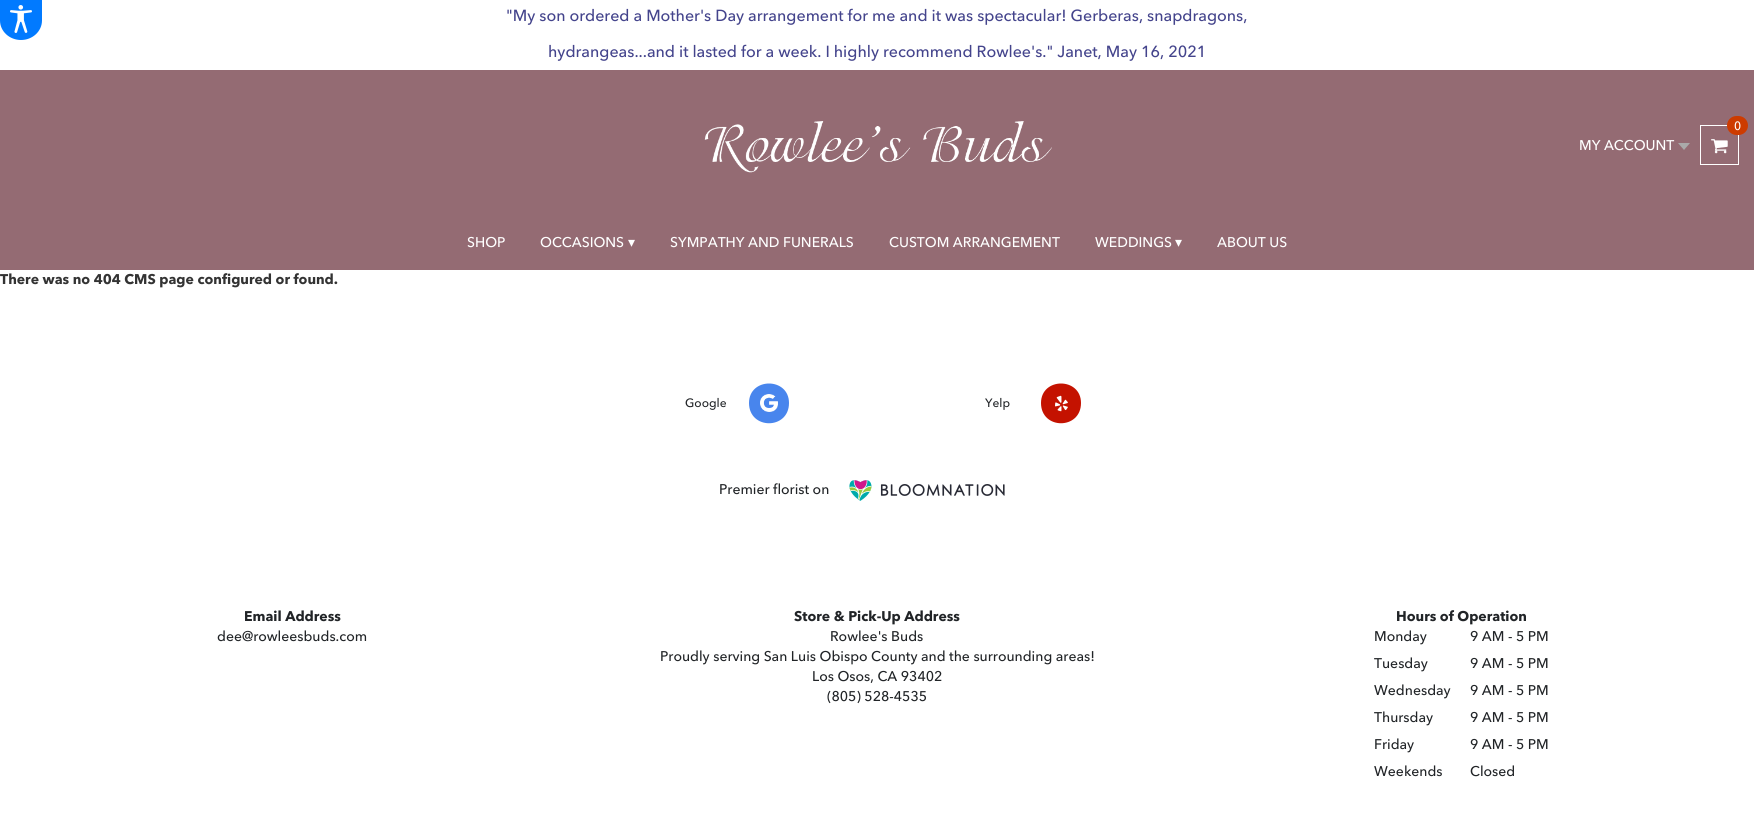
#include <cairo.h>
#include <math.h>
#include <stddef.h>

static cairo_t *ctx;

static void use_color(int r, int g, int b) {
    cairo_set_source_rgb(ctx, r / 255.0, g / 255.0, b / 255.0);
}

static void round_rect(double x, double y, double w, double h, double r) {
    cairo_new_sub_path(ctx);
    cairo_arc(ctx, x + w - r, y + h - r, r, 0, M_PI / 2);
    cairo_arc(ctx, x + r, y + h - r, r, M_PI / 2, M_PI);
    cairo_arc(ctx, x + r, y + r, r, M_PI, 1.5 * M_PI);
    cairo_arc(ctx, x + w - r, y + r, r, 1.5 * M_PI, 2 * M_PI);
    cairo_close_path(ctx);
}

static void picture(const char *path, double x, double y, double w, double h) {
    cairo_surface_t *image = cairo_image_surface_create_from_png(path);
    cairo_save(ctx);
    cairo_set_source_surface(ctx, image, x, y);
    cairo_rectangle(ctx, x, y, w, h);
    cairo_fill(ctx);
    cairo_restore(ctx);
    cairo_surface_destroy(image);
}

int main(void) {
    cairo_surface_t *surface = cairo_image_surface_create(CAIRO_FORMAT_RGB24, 1754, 815);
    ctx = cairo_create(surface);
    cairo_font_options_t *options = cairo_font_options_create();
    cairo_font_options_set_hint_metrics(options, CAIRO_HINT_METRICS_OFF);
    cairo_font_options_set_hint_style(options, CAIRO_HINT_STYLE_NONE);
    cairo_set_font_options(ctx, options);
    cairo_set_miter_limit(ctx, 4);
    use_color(255, 255, 255);
    cairo_paint(ctx);
    picture("img1.png", 0, 0, 42, 40);
    cairo_select_font_face(ctx, "Avenir Next Medium", CAIRO_FONT_SLANT_NORMAL, CAIRO_FONT_WEIGHT_NORMAL);
    cairo_set_font_size(ctx, 16);
    use_color(68, 68, 140);
    cairo_move_to(ctx, 506, 21);
    cairo_show_text(ctx, "\"My son ordered a Mother's Day arrangement for me and it was spectacular! Gerberas, snapdragons,");
    cairo_move_to(ctx, 548, 57);
    cairo_show_text(ctx, "hydrangeas...and it lasted for a week. I highly recommend Rowlee's.\" Janet, May 16, 2021");
    use_color(148, 107, 115);
    cairo_rectangle(ctx, 0, 70, 1754, 200);
    cairo_fill(ctx);
    picture("img2.png", 704, 121, 348, 52);
    cairo_rectangle(ctx, 1700.5, 125.5, 38, 39);
    use_color(255, 255, 255);
    cairo_set_line_width(ctx, 1);
    cairo_stroke(ctx);
    use_color(205, 59, 0);
    round_rect(1727, 116, 21, 19, 9.5);
    cairo_fill(ctx);
    cairo_set_font_size(ctx, 12);
    use_color(255, 255, 255);
    cairo_move_to(ctx, 1734, 130);
    cairo_show_text(ctx, "0");
    picture("img3.png", 1711, 139, 17, 15);
    cairo_set_font_size(ctx, 14);
    cairo_move_to(ctx, 1579, 150);
    cairo_show_text(ctx, "MY ACCOUNT");
    picture("img4.png", 1678, 143, 12, 7);
    cairo_move_to(ctx, 467, 247);
    cairo_show_text(ctx, "SHOP");
    cairo_move_to(ctx, 540, 247);
    cairo_show_text(ctx, "OCCASIONS");
    cairo_select_font_face(ctx, "DejaVu Sans", CAIRO_FONT_SLANT_NORMAL, CAIRO_FONT_WEIGHT_NORMAL);
    cairo_move_to(ctx, 628, 247);
    cairo_show_text(ctx, "▾");
    cairo_select_font_face(ctx, "Avenir Next Medium", CAIRO_FONT_SLANT_NORMAL, CAIRO_FONT_WEIGHT_NORMAL);
    cairo_move_to(ctx, 670, 247);
    cairo_show_text(ctx, "SYMPATHY AND FUNERALS");
    cairo_move_to(ctx, 889, 247);
    cairo_show_text(ctx, "CUSTOM ARRANGEMENT");
    cairo_move_to(ctx, 1095, 247);
    cairo_show_text(ctx, "WEDDINGS");
    cairo_select_font_face(ctx, "DejaVu Sans", CAIRO_FONT_SLANT_NORMAL, CAIRO_FONT_WEIGHT_NORMAL);
    cairo_move_to(ctx, 1175, 247);
    cairo_show_text(ctx, "▾");
    cairo_select_font_face(ctx, "Avenir Next Medium", CAIRO_FONT_SLANT_NORMAL, CAIRO_FONT_WEIGHT_NORMAL);
    cairo_move_to(ctx, 1217, 247);
    cairo_show_text(ctx, "ABOUT US");
    cairo_select_font_face(ctx, "Avenir Next", CAIRO_FONT_SLANT_NORMAL, CAIRO_FONT_WEIGHT_BOLD);
    use_color(51, 51, 51);
    cairo_move_to(ctx, 0, 284);
    cairo_show_text(ctx, "There was no 404 CMS page configured or found.");
    cairo_select_font_face(ctx, "Avenir Next Medium", CAIRO_FONT_SLANT_NORMAL, CAIRO_FONT_WEIGHT_NORMAL);
    cairo_set_font_size(ctx, 12);
    use_color(33, 36, 39);
    cairo_move_to(ctx, 685, 407);
    cairo_show_text(ctx, "Google");
    use_color(72, 133, 237);
    cairo_new_path(ctx);
    cairo_move_to(ctx, 789, 403);
    cairo_curve_to(ctx, 789, 377, 749, 377, 749, 403);
    cairo_curve_to(ctx, 749, 430, 789, 430, 789, 403);
    cairo_close_path(ctx);
    cairo_fill(ctx);
    picture("img5.png", 760, 394, 18, 18);
    use_color(33, 36, 39);
    cairo_move_to(ctx, 985, 407);
    cairo_show_text(ctx, "Yelp");
    use_color(196, 18, 0);
    cairo_new_path(ctx);
    cairo_move_to(ctx, 1081, 403);
    cairo_curve_to(ctx, 1081, 377, 1041, 377, 1041, 403);
    cairo_curve_to(ctx, 1041, 430, 1081, 430, 1081, 403);
    cairo_close_path(ctx);
    cairo_fill(ctx);
    picture("img6.png", 1055, 395, 13, 17);
    cairo_set_font_size(ctx, 14);
    use_color(33, 36, 39);
    cairo_move_to(ctx, 719, 494);
    cairo_show_text(ctx, "Premier florist on");
    picture("img7.png", 849, 480, 156, 21);
    cairo_select_font_face(ctx, "Avenir Next", CAIRO_FONT_SLANT_NORMAL, CAIRO_FONT_WEIGHT_BOLD);
    cairo_move_to(ctx, 244, 621);
    cairo_show_text(ctx, "Email Address");
    cairo_select_font_face(ctx, "Avenir Next Medium", CAIRO_FONT_SLANT_NORMAL, CAIRO_FONT_WEIGHT_NORMAL);
    cairo_move_to(ctx, 217, 641);
    cairo_show_text(ctx, "dee@rowleesbuds.com");
    cairo_select_font_face(ctx, "Avenir Next", CAIRO_FONT_SLANT_NORMAL, CAIRO_FONT_WEIGHT_BOLD);
    cairo_move_to(ctx, 794, 621);
    cairo_show_text(ctx, "Store & Pick-Up Address");
    cairo_select_font_face(ctx, "Avenir Next Medium", CAIRO_FONT_SLANT_NORMAL, CAIRO_FONT_WEIGHT_NORMAL);
    cairo_move_to(ctx, 830, 641);
    cairo_show_text(ctx, "Rowlee's Buds");
    cairo_move_to(ctx, 660, 661);
    cairo_show_text(ctx, "Proudly serving San Luis Obispo County and the surrounding areas!");
    cairo_move_to(ctx, 812, 681);
    cairo_show_text(ctx, "Los Osos, CA 93402");
    cairo_move_to(ctx, 827, 701);
    cairo_show_text(ctx, "(805) 528-4535");
    cairo_select_font_face(ctx, "Avenir Next", CAIRO_FONT_SLANT_NORMAL, CAIRO_FONT_WEIGHT_BOLD);
    cairo_move_to(ctx, 1396, 621);
    cairo_show_text(ctx, "Hours of Operation");
    cairo_select_font_face(ctx, "Avenir Next Medium", CAIRO_FONT_SLANT_NORMAL, CAIRO_FONT_WEIGHT_NORMAL);
    cairo_move_to(ctx, 1374, 641);
    cairo_show_text(ctx, "Monday");
    cairo_move_to(ctx, 1470, 641);
    cairo_show_text(ctx, "9 AM - 5 PM");
    cairo_move_to(ctx, 1374, 668);
    cairo_show_text(ctx, "Tuesday");
    cairo_move_to(ctx, 1470, 668);
    cairo_show_text(ctx, "9 AM - 5 PM");
    cairo_move_to(ctx, 1374, 695);
    cairo_show_text(ctx, "Wednesday");
    cairo_move_to(ctx, 1470, 695);
    cairo_show_text(ctx, "9 AM - 5 PM");
    cairo_move_to(ctx, 1374, 722);
    cairo_show_text(ctx, "Thursday");
    cairo_move_to(ctx, 1470, 722);
    cairo_show_text(ctx, "9 AM - 5 PM");
    cairo_move_to(ctx, 1374, 749);
    cairo_show_text(ctx, "Friday");
    cairo_move_to(ctx, 1470, 749);
    cairo_show_text(ctx, "9 AM - 5 PM");
    cairo_move_to(ctx, 1374, 776);
    cairo_show_text(ctx, "Weekends");
    cairo_move_to(ctx, 1470, 776);
    cairo_show_text(ctx, "Closed");
    cairo_surface_write_to_png(surface, "result.png");
    cairo_font_options_destroy(options);
    cairo_destroy(ctx);
    cairo_surface_destroy(surface);
    return 0;
}
